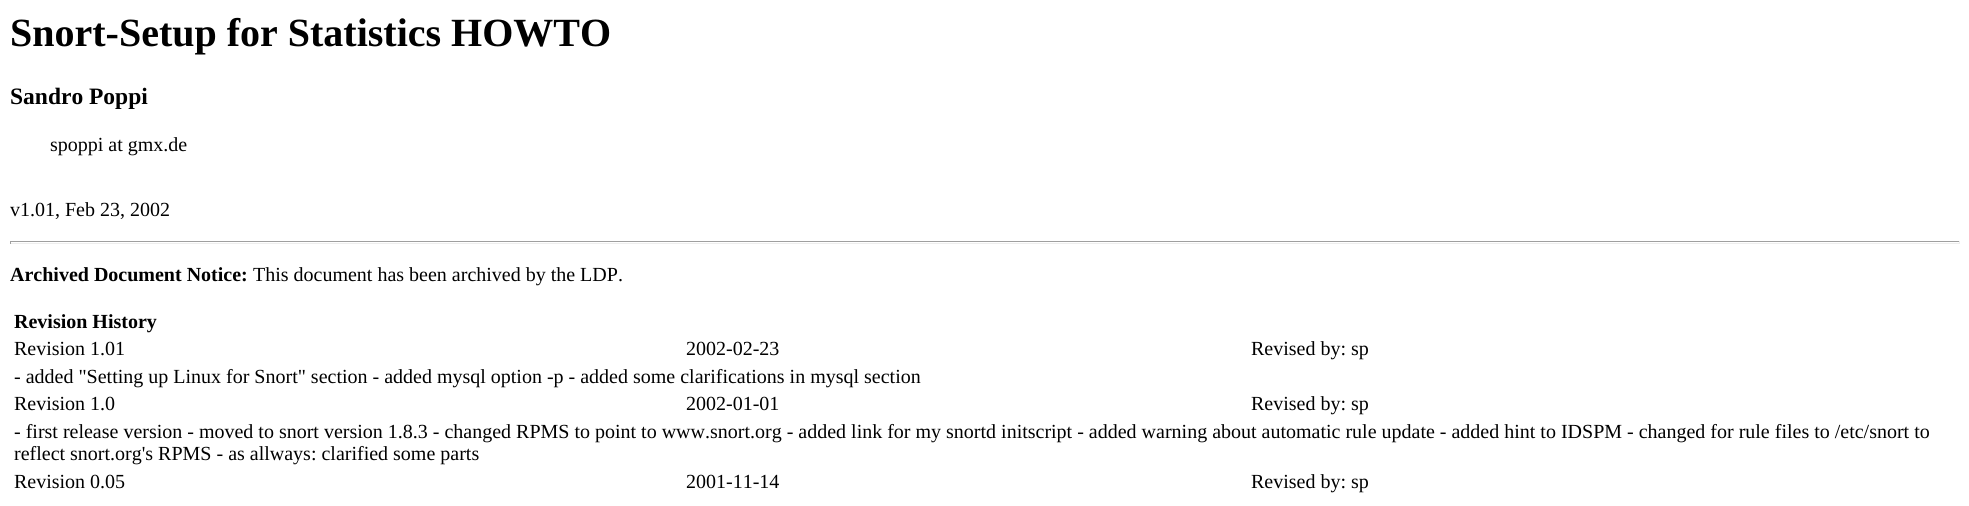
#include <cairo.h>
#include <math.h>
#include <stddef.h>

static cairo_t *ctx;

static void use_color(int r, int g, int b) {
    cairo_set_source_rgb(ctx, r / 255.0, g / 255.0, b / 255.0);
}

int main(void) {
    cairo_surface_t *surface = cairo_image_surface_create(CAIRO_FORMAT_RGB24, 1969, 506);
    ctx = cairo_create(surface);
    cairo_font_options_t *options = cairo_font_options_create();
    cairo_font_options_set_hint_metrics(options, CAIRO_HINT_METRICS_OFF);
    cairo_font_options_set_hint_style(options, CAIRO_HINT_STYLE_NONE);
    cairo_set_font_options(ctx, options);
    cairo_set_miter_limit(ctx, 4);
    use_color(255, 255, 255);
    cairo_paint(ctx);
    cairo_select_font_face(ctx, "Liberation Serif", CAIRO_FONT_SLANT_NORMAL, CAIRO_FONT_WEIGHT_BOLD);
    cairo_set_font_size(ctx, 40);
    use_color(0, 0, 0);
    cairo_move_to(ctx, 10, 46);
    cairo_show_text(ctx, "Snort-Setup for Statistics HOWTO");
    cairo_set_font_size(ctx, 23.5);
    cairo_move_to(ctx, 10, 104);
    cairo_show_text(ctx, "Sandro Poppi");
    cairo_select_font_face(ctx, "Liberation Serif", CAIRO_FONT_SLANT_NORMAL, CAIRO_FONT_WEIGHT_NORMAL);
    cairo_set_font_size(ctx, 20);
    cairo_move_to(ctx, 50, 151);
    cairo_show_text(ctx, "spoppi at gmx.de");
    cairo_move_to(ctx, 10, 216);
    cairo_show_text(ctx, "v1.01, Feb 23, 2002");
    use_color(159, 159, 159);
    cairo_rectangle(ctx, 10, 241, 1950, 1);
    cairo_fill(ctx);
    use_color(238, 238, 238);
    cairo_rectangle(ctx, 1959, 241, 1, 3);
    cairo_fill(ctx);
    cairo_rectangle(ctx, 10, 243, 1950, 1);
    cairo_fill(ctx);
    use_color(159, 159, 159);
    cairo_rectangle(ctx, 10, 241, 1, 3);
    cairo_fill(ctx);
    cairo_select_font_face(ctx, "Liberation Serif", CAIRO_FONT_SLANT_NORMAL, CAIRO_FONT_WEIGHT_BOLD);
    use_color(0, 0, 0);
    cairo_move_to(ctx, 10, 281);
    cairo_show_text(ctx, "Archived Document Notice:");
    cairo_select_font_face(ctx, "Liberation Serif", CAIRO_FONT_SLANT_NORMAL, CAIRO_FONT_WEIGHT_NORMAL);
    cairo_move_to(ctx, 253, 281);
    cairo_show_text(ctx, "This document has been archived by the LDP.");
    cairo_select_font_face(ctx, "Liberation Serif", CAIRO_FONT_SLANT_NORMAL, CAIRO_FONT_WEIGHT_BOLD);
    cairo_move_to(ctx, 14, 328);
    cairo_show_text(ctx, "Revision History");
    cairo_select_font_face(ctx, "Liberation Serif", CAIRO_FONT_SLANT_NORMAL, CAIRO_FONT_WEIGHT_NORMAL);
    cairo_move_to(ctx, 14, 355);
    cairo_show_text(ctx, "Revision 1.01");
    cairo_move_to(ctx, 686, 355);
    cairo_show_text(ctx, "2002-02-23");
    cairo_move_to(ctx, 1251, 355);
    cairo_show_text(ctx, "Revised by: sp");
    cairo_move_to(ctx, 14, 383);
    cairo_show_text(ctx, "- added \"Setting up Linux for Snort\" section - added mysql option -p - added some clarifications in mysql section");
    cairo_move_to(ctx, 14, 410);
    cairo_show_text(ctx, "Revision 1.0");
    cairo_move_to(ctx, 686, 410);
    cairo_show_text(ctx, "2002-01-01");
    cairo_move_to(ctx, 1251, 410);
    cairo_show_text(ctx, "Revised by: sp");
    cairo_move_to(ctx, 14, 438);
    cairo_show_text(ctx, "- first release version - moved to snort version 1.8.3 - changed RPMS to point to www.snort.org - added link for my snortd initscript - added warning about automatic rule update - added hint to IDSPM - changed for rule files to /etc/snort to");
    cairo_move_to(ctx, 14, 460);
    cairo_show_text(ctx, "reflect snort.org's RPMS - as allways: clarified some parts");
    cairo_move_to(ctx, 14, 488);
    cairo_show_text(ctx, "Revision 0.05");
    cairo_move_to(ctx, 686, 488);
    cairo_show_text(ctx, "2001-11-14");
    cairo_move_to(ctx, 1251, 488);
    cairo_show_text(ctx, "Revised by: sp");
    cairo_surface_write_to_png(surface, "result.png");
    cairo_font_options_destroy(options);
    cairo_destroy(ctx);
    cairo_surface_destroy(surface);
    return 0;
}
